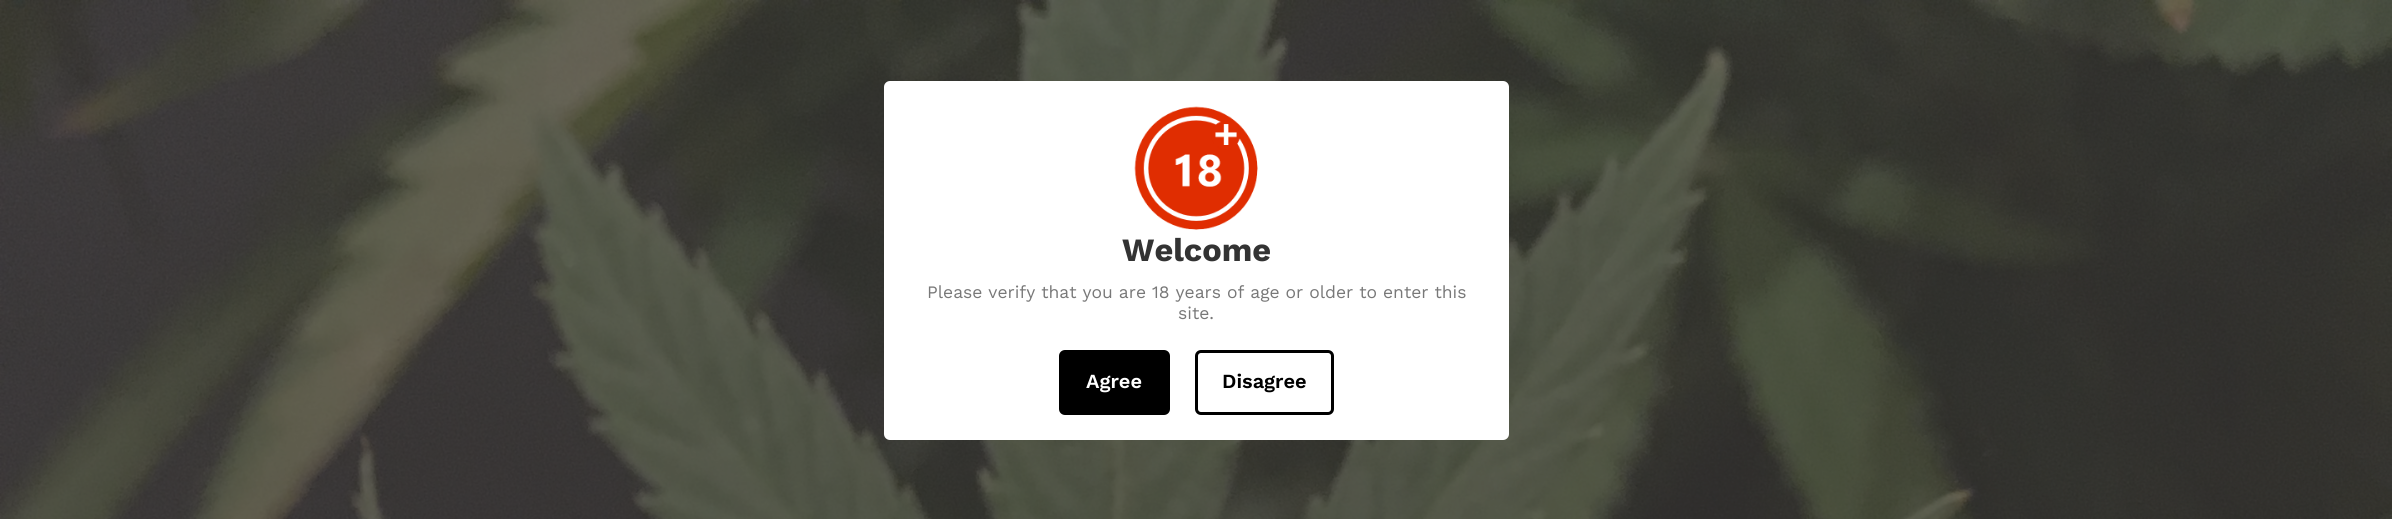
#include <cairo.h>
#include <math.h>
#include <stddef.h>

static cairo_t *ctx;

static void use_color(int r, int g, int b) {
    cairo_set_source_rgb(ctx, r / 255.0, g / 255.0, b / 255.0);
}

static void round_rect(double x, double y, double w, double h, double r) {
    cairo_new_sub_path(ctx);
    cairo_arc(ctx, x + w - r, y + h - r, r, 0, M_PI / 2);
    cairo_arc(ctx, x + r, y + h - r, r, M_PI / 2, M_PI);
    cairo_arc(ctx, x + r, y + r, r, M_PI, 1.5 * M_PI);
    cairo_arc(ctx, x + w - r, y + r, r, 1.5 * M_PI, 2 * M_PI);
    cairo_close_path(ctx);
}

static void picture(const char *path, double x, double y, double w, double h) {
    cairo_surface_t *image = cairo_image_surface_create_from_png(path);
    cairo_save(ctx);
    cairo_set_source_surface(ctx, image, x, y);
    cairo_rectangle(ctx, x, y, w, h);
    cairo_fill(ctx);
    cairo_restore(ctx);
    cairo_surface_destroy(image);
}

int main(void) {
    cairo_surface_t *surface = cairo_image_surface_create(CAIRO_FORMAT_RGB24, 2392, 519);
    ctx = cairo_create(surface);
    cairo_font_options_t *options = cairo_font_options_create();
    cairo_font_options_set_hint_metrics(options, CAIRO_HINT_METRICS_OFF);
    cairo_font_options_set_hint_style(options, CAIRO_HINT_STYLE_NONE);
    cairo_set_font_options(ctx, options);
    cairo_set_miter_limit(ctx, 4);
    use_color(255, 255, 255);
    cairo_paint(ctx);
    picture("img1.png", 0, 0, 2392, 519);
    use_color(255, 255, 255);
    round_rect(884, 81, 625, 359, 6);
    cairo_fill(ctx);
    picture("img2.png", 1134, 106, 124, 124);
    cairo_select_font_face(ctx, "Work Sans", CAIRO_FONT_SLANT_NORMAL, CAIRO_FONT_WEIGHT_BOLD);
    cairo_set_font_size(ctx, 32.5);
    use_color(51, 51, 51);
    cairo_move_to(ctx, 1122, 261);
    cairo_show_text(ctx, "Welcome");
    cairo_select_font_face(ctx, "Work Sans", CAIRO_FONT_SLANT_NORMAL, CAIRO_FONT_WEIGHT_NORMAL);
    cairo_set_font_size(ctx, 17.5);
    use_color(120, 120, 120);
    cairo_move_to(ctx, 927, 298);
    cairo_show_text(ctx, "Please verify that you are 18 years of age or older to enter this");
    cairo_move_to(ctx, 1178, 319);
    cairo_show_text(ctx, "site.");
    use_color(0, 0, 0);
    round_rect(1060.5, 351.5, 108, 62, 4.5);
    cairo_fill_preserve(ctx);
    cairo_set_line_width(ctx, 3);
    cairo_stroke(ctx);
    cairo_select_font_face(ctx, "Work Sans SemiBold", CAIRO_FONT_SLANT_NORMAL, CAIRO_FONT_WEIGHT_NORMAL);
    cairo_set_font_size(ctx, 20);
    use_color(255, 255, 255);
    cairo_move_to(ctx, 1086, 388);
    cairo_show_text(ctx, "Agree");
    round_rect(1196.5, 351.5, 136, 62, 4.5);
    use_color(0, 0, 0);
    cairo_stroke(ctx);
    cairo_move_to(ctx, 1222, 388);
    cairo_show_text(ctx, "Disagree");
    cairo_surface_write_to_png(surface, "result.png");
    cairo_font_options_destroy(options);
    cairo_destroy(ctx);
    cairo_surface_destroy(surface);
    return 0;
}
